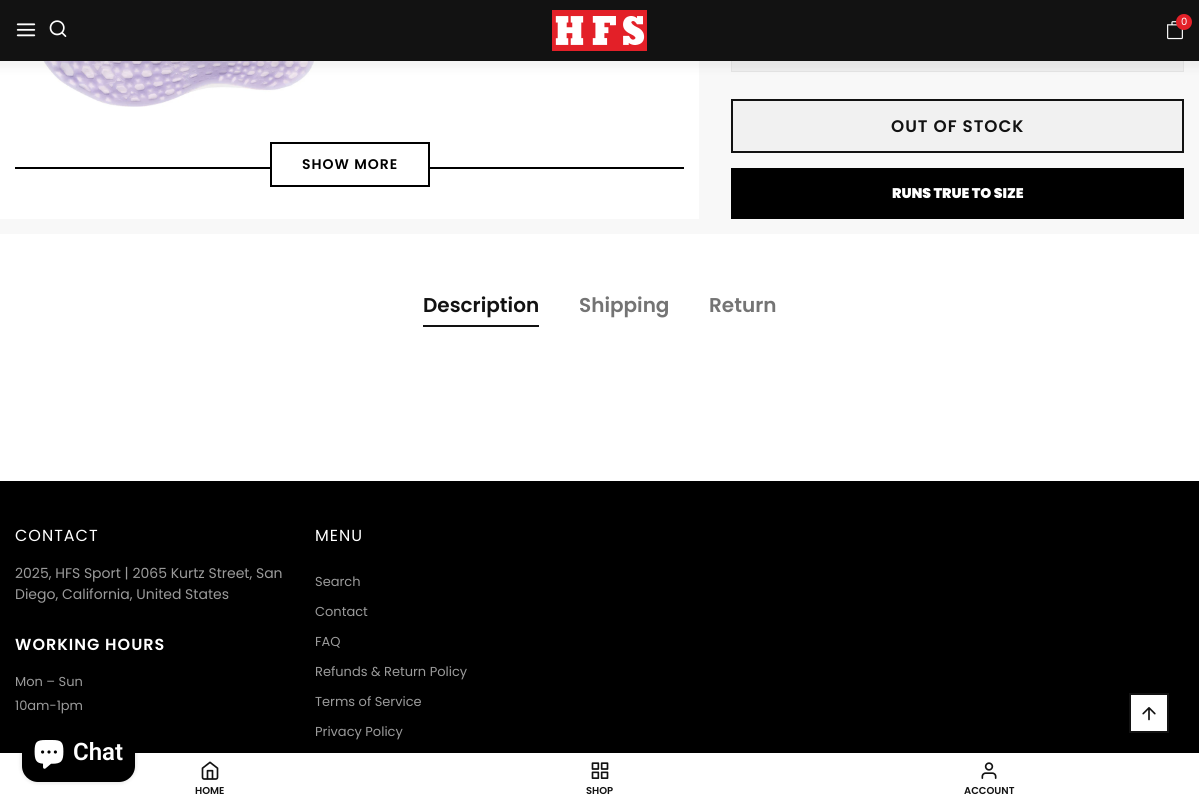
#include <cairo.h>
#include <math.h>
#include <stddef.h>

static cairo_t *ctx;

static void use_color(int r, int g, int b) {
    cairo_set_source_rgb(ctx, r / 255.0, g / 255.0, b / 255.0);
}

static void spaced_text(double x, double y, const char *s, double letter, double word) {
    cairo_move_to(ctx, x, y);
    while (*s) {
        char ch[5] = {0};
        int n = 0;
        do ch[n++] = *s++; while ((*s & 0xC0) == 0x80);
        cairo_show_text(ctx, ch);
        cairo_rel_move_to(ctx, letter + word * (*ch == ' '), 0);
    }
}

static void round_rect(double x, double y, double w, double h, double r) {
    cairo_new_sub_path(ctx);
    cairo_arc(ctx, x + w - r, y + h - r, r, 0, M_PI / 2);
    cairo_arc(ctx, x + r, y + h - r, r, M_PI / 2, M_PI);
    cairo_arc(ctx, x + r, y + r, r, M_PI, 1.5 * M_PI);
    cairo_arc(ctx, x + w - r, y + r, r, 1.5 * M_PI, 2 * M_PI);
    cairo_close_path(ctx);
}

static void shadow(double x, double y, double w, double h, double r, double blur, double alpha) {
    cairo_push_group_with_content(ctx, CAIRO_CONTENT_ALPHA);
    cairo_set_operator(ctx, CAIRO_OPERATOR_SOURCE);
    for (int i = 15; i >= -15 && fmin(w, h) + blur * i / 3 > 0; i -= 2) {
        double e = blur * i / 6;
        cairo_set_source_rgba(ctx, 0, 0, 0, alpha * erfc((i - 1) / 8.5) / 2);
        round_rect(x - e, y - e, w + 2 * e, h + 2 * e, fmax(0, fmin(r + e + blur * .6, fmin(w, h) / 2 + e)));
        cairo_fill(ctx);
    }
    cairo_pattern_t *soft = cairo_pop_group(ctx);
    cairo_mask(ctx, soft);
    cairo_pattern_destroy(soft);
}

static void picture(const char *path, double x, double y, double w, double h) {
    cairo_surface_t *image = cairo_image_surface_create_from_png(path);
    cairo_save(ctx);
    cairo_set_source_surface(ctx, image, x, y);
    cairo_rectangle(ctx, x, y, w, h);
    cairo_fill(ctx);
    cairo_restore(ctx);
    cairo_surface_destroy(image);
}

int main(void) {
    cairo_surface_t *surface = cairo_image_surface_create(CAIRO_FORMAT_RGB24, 1199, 803);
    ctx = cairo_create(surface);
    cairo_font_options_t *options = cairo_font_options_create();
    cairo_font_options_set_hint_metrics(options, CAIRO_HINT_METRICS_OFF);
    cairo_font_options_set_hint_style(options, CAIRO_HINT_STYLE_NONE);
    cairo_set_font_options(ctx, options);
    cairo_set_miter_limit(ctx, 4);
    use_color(255, 255, 255);
    cairo_paint(ctx);
    use_color(248, 248, 248);
    cairo_rectangle(ctx, 0, 61, 1199, 173);
    cairo_fill(ctx);
    use_color(255, 255, 255);
    cairo_rectangle(ctx, 0, 61, 699, 158);
    cairo_fill(ctx);
    picture("img8.png", 39, 61, 278, 46);
    use_color(239, 239, 239);
    cairo_rectangle(ctx, 732, 61, 451, 10);
    cairo_fill(ctx);
    cairo_rectangle(ctx, 731.5, 32.5, 452, 39);
    use_color(229, 229, 229);
    cairo_set_line_width(ctx, 1);
    cairo_stroke(ctx);
    use_color(0, 0, 0);
    shadow(-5, -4, 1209, 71, 0, 5, 0.05);
    use_color(18, 18, 18);
    cairo_rectangle(ctx, 0, 0, 1199, 61);
    cairo_fill(ctx);
    picture("img1.png", 16, 23, 20, 14);
    picture("img2.png", 49, 20, 18, 17);
    picture("img3.png", 552, 10, 95, 41);
    picture("img4.png", 1167, 21, 16, 19);
    use_color(227, 32, 40);
    cairo_arc(ctx, 1184, 22, 8, 0, 2 * M_PI);
    cairo_fill(ctx);
    cairo_select_font_face(ctx, "Poppins", CAIRO_FONT_SLANT_NORMAL, CAIRO_FONT_WEIGHT_NORMAL);
    cairo_set_font_size(ctx, 10);
    use_color(255, 255, 255);
    cairo_move_to(ctx, 1181, 25);
    cairo_show_text(ctx, "0");
    picture("img5.png", 201, 761, 18, 19);
    cairo_select_font_face(ctx, "Poppins SemiBold", CAIRO_FONT_SLANT_NORMAL, CAIRO_FONT_WEIGHT_NORMAL);
    use_color(18, 18, 18);
    cairo_move_to(ctx, 195, 794);
    cairo_show_text(ctx, "HOME");
    picture("img6.png", 591, 762, 18, 17);
    cairo_move_to(ctx, 586, 794);
    cairo_show_text(ctx, "SHOP");
    picture("img7.png", 981, 762, 16, 17);
    cairo_move_to(ctx, 964, 794);
    cairo_show_text(ctx, "ACCOUNT");
    use_color(0, 0, 0);
    cairo_rectangle(ctx, 15, 167, 669, 2);
    cairo_fill(ctx);
    use_color(255, 255, 255);
    cairo_rectangle(ctx, 272, 167, 156, 2);
    cairo_fill(ctx);
    cairo_rectangle(ctx, 271, 143, 158, 43);
    use_color(0, 0, 0);
    cairo_set_line_width(ctx, 2);
    cairo_stroke(ctx);
    cairo_set_font_size(ctx, 14);
    spaced_text(302, 169, "SHOW MORE", 1, 0);
    use_color(241, 241, 241);
    cairo_rectangle(ctx, 732, 100, 451, 52);
    cairo_fill_preserve(ctx);
    use_color(18, 18, 18);
    cairo_stroke(ctx);
    cairo_set_font_size(ctx, 16.75);
    spaced_text(891, 132, "OUT OF STOCK", 1, 0);
    use_color(0, 0, 0);
    cairo_rectangle(ctx, 731, 168, 453, 51);
    cairo_fill(ctx);
    cairo_select_font_face(ctx, "Poppins Black", CAIRO_FONT_SLANT_NORMAL, CAIRO_FONT_WEIGHT_NORMAL);
    cairo_set_font_size(ctx, 14);
    use_color(255, 255, 255);
    cairo_move_to(ctx, 892, 198);
    cairo_show_text(ctx, "RUNS TRUE TO SIZE");
    cairo_select_font_face(ctx, "Poppins SemiBold", CAIRO_FONT_SLANT_NORMAL, CAIRO_FONT_WEIGHT_NORMAL);
    cairo_set_font_size(ctx, 20);
    use_color(18, 18, 18);
    cairo_move_to(ctx, 423, 312);
    cairo_show_text(ctx, "Description");
    cairo_rectangle(ctx, 423, 325, 116, 2);
    cairo_fill(ctx);
    use_color(116, 116, 116);
    cairo_move_to(ctx, 579, 312);
    cairo_show_text(ctx, "Shipping");
    cairo_move_to(ctx, 709, 312);
    cairo_show_text(ctx, "Return");
    use_color(0, 0, 0);
    cairo_rectangle(ctx, 0, 481, 1199, 272);
    cairo_fill(ctx);
    cairo_select_font_face(ctx, "Poppins", CAIRO_FONT_SLANT_NORMAL, CAIRO_FONT_WEIGHT_NORMAL);
    cairo_set_font_size(ctx, 16);
    use_color(255, 255, 255);
    spaced_text(15, 541, "CONTACT", 1, 0);
    cairo_set_font_size(ctx, 14);
    use_color(155, 155, 155);
    cairo_move_to(ctx, 15, 578);
    cairo_show_text(ctx, "2025, HFS Sport | 2065 Kurtz Street, San");
    cairo_move_to(ctx, 15, 599);
    cairo_show_text(ctx, "Diego, California, United States");
    cairo_select_font_face(ctx, "Poppins SemiBold", CAIRO_FONT_SLANT_NORMAL, CAIRO_FONT_WEIGHT_NORMAL);
    cairo_set_font_size(ctx, 16);
    use_color(255, 255, 255);
    spaced_text(15, 650, "WORKING HOURS", 1, 0);
    cairo_select_font_face(ctx, "Poppins", CAIRO_FONT_SLANT_NORMAL, CAIRO_FONT_WEIGHT_NORMAL);
    cairo_set_font_size(ctx, 13);
    use_color(155, 155, 155);
    cairo_move_to(ctx, 15, 686);
    cairo_show_text(ctx, "Mon – Sun");
    cairo_move_to(ctx, 15, 710);
    cairo_show_text(ctx, "10am-1pm");
    cairo_set_font_size(ctx, 16);
    use_color(255, 255, 255);
    spaced_text(315, 541, "MENU", 1, 0);
    cairo_set_font_size(ctx, 13);
    use_color(155, 155, 155);
    cairo_move_to(ctx, 315, 586);
    cairo_show_text(ctx, "Search");
    cairo_move_to(ctx, 315, 616);
    cairo_show_text(ctx, "Contact");
    cairo_move_to(ctx, 315, 646);
    cairo_show_text(ctx, "FAQ");
    cairo_move_to(ctx, 315, 676);
    cairo_show_text(ctx, "Refunds & Return Policy");
    cairo_move_to(ctx, 315, 706);
    cairo_show_text(ctx, "Terms of Service");
    cairo_move_to(ctx, 315, 736);
    cairo_show_text(ctx, "Privacy Policy");
    use_color(255, 255, 255);
    cairo_rectangle(ctx, 1130, 694, 38, 38);
    cairo_fill_preserve(ctx);
    use_color(18, 18, 18);
    cairo_stroke(ctx);
    picture("img9.png", 1142, 707, 14, 14);
    use_color(0, 0, 0);
    shadow(22, 722, 113, 60, 16, 2.5, 0.15);
    use_color(0, 0, 0);
    round_rect(22, 722, 113, 60, 16);
    cairo_fill(ctx);
    picture("img10.png", 34, 740, 30, 29);
    cairo_select_font_face(ctx, "Roboto SemiBold", CAIRO_FONT_SLANT_NORMAL, CAIRO_FONT_WEIGHT_NORMAL);
    cairo_set_font_size(ctx, 24);
    use_color(255, 255, 255);
    cairo_move_to(ctx, 73, 760);
    cairo_show_text(ctx, "Chat");
    cairo_surface_write_to_png(surface, "result.png");
    cairo_font_options_destroy(options);
    cairo_destroy(ctx);
    cairo_surface_destroy(surface);
    return 0;
}
